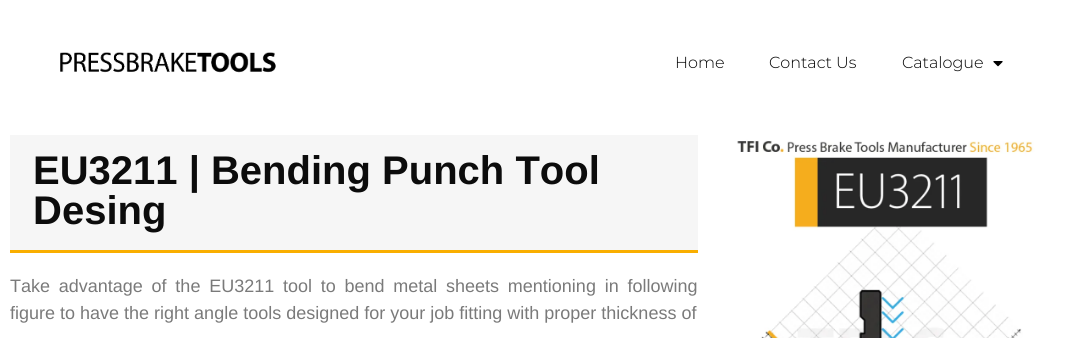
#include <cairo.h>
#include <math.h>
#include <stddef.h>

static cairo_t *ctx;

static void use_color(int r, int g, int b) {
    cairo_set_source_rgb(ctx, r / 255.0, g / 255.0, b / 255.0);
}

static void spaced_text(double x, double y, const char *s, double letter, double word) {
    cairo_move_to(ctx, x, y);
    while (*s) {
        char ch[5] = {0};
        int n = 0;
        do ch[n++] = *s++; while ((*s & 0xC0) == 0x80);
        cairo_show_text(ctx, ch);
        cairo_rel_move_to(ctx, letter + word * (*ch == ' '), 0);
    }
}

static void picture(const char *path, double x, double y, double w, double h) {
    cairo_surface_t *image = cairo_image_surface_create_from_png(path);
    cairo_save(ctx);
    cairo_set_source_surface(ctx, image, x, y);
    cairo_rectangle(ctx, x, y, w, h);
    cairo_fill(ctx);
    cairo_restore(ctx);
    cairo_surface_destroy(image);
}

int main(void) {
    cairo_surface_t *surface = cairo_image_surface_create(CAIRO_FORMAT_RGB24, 1077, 338);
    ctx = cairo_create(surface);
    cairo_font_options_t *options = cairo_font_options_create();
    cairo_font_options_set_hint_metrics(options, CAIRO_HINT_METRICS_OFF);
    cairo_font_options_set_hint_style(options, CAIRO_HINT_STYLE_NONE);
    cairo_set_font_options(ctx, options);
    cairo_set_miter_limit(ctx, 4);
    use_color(255, 255, 255);
    cairo_paint(ctx);
    picture("img1.png", 60, 52, 216, 21);
    cairo_select_font_face(ctx, "Montserrat Light", CAIRO_FONT_SLANT_NORMAL, CAIRO_FONT_WEIGHT_NORMAL);
    cairo_set_font_size(ctx, 16);
    use_color(0, 0, 0);
    cairo_move_to(ctx, 675, 68);
    cairo_show_text(ctx, "Home");
    cairo_move_to(ctx, 769, 68);
    cairo_show_text(ctx, "Contact Us");
    cairo_move_to(ctx, 902, 68);
    cairo_show_text(ctx, "Catalogue");
    picture("img2.png", 993, 61, 10, 6);
    use_color(246, 246, 246);
    cairo_rectangle(ctx, 10, 135, 688, 115);
    cairo_fill(ctx);
    use_color(249, 174, 0);
    cairo_rectangle(ctx, 10, 250, 688, 3);
    cairo_fill(ctx);
    cairo_select_font_face(ctx, "Liberation Sans", CAIRO_FONT_SLANT_NORMAL, CAIRO_FONT_WEIGHT_BOLD);
    cairo_set_font_size(ctx, 40);
    use_color(12, 12, 12);
    cairo_move_to(ctx, 33, 184);
    cairo_show_text(ctx, "EU3211 | Bending Punch Tool");
    cairo_move_to(ctx, 33, 224);
    cairo_show_text(ctx, "Desing");
    cairo_select_font_face(ctx, "Liberation Sans", CAIRO_FONT_SLANT_NORMAL, CAIRO_FONT_WEIGHT_NORMAL);
    cairo_set_font_size(ctx, 18);
    use_color(122, 122, 122);
    spaced_text(10, 292, "Take advantage of the EU3211 tool to bend metal sheets mentioning in following", 0, 3.75);
    cairo_move_to(ctx, 10, 319);
    cairo_show_text(ctx, "figure to have the right angle tools designed for your job fitting with proper thickness of");
    picture("img3.png", 718, 135, 349, 203);
    cairo_surface_write_to_png(surface, "result.png");
    cairo_font_options_destroy(options);
    cairo_destroy(ctx);
    cairo_surface_destroy(surface);
    return 0;
}
